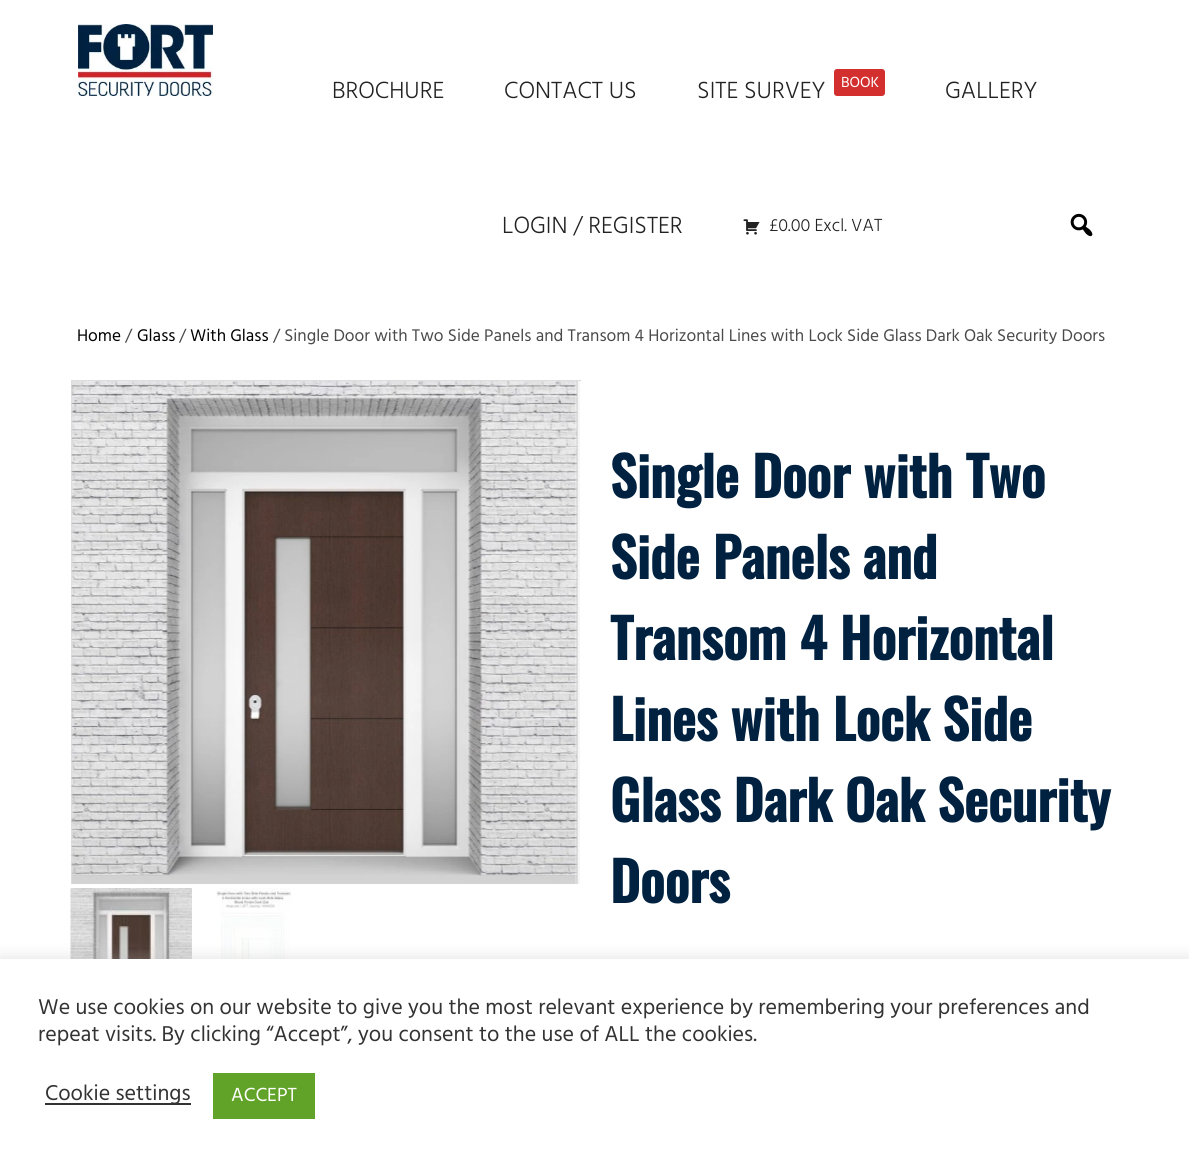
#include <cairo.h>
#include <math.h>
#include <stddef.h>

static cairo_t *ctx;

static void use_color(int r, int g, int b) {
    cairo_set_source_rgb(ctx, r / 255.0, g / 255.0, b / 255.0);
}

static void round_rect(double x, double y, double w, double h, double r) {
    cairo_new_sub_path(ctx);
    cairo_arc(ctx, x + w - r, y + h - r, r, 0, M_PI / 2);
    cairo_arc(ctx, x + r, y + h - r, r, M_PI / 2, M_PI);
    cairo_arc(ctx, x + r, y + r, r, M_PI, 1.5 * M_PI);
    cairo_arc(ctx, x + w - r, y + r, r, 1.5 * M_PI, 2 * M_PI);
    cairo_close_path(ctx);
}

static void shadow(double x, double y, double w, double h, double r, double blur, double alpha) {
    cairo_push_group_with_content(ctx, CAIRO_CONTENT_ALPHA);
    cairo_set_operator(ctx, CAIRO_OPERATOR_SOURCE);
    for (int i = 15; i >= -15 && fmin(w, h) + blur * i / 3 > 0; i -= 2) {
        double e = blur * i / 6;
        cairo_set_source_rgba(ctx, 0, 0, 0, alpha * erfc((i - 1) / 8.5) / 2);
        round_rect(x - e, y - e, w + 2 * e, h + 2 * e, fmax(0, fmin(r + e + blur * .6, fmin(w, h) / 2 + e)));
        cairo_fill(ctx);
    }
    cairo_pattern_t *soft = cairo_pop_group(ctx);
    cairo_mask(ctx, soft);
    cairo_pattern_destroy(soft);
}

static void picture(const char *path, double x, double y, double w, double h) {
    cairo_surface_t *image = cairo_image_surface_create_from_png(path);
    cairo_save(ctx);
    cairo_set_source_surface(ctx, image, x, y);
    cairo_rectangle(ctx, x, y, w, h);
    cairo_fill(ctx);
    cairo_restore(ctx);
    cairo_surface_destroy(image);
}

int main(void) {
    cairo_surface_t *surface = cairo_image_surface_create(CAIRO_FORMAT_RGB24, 1189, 1164);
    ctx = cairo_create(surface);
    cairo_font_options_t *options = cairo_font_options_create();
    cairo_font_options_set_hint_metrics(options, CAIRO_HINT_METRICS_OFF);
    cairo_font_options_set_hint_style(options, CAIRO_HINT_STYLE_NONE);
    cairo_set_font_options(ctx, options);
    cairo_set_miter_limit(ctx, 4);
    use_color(255, 255, 255);
    cairo_paint(ctx);
    picture("img1.png", 78, 24, 135, 72);
    cairo_select_font_face(ctx, "Hind Light", CAIRO_FONT_SLANT_NORMAL, CAIRO_FONT_WEIGHT_NORMAL);
    cairo_set_font_size(ctx, 24);
    use_color(34, 34, 34);
    cairo_move_to(ctx, 332, 98);
    cairo_show_text(ctx, "BROCHURE");
    cairo_move_to(ctx, 504, 98);
    cairo_show_text(ctx, "CONTACT US");
    cairo_move_to(ctx, 697, 98);
    cairo_show_text(ctx, "SITE SURVEY");
    use_color(211, 47, 47);
    round_rect(834, 69, 51, 27, 3);
    cairo_fill(ctx);
    cairo_select_font_face(ctx, "Hind", CAIRO_FONT_SLANT_NORMAL, CAIRO_FONT_WEIGHT_NORMAL);
    cairo_set_font_size(ctx, 15);
    use_color(255, 255, 255);
    cairo_move_to(ctx, 841, 87);
    cairo_show_text(ctx, "BOOK");
    cairo_select_font_face(ctx, "Hind Light", CAIRO_FONT_SLANT_NORMAL, CAIRO_FONT_WEIGHT_NORMAL);
    cairo_set_font_size(ctx, 24);
    use_color(34, 34, 34);
    cairo_move_to(ctx, 945, 98);
    cairo_show_text(ctx, "GALLERY");
    cairo_move_to(ctx, 502, 233);
    cairo_show_text(ctx, "LOGIN / REGISTER");
    picture("img2.png", 743, 219, 17, 16);
    cairo_set_font_size(ctx, 18);
    cairo_move_to(ctx, 769, 231);
    cairo_show_text(ctx, "£0.00 Excl. VAT");
    picture("img3.png", 1070, 213, 23, 24);
    cairo_select_font_face(ctx, "Hind", CAIRO_FONT_SLANT_NORMAL, CAIRO_FONT_WEIGHT_NORMAL);
    cairo_set_font_size(ctx, 17.3);
    use_color(0, 0, 0);
    cairo_move_to(ctx, 77, 341);
    cairo_show_text(ctx, "Home");
    use_color(74, 74, 74);
    cairo_move_to(ctx, 125, 341);
    cairo_show_text(ctx, "/");
    use_color(0, 0, 0);
    cairo_move_to(ctx, 137, 341);
    cairo_show_text(ctx, "Glass");
    use_color(74, 74, 74);
    cairo_move_to(ctx, 179, 341);
    cairo_show_text(ctx, "/");
    use_color(0, 0, 0);
    cairo_move_to(ctx, 190, 341);
    cairo_show_text(ctx, "With Glass");
    use_color(74, 74, 74);
    cairo_move_to(ctx, 273, 341);
    cairo_show_text(ctx, "/ Single Door with Two Side Panels and Transom 4 Horizontal Lines with Lock Side Glass Dark Oak Security Doors");
    cairo_save(ctx);
    cairo_rectangle(ctx, 71, 380, 510, 504);
    cairo_clip(ctx);
    cairo_rectangle(ctx, 72, 381, 505, 505);
    use_color(221, 221, 221);
    cairo_stroke(ctx);
    cairo_restore(ctx);
    picture("img4.png", 71, 381, 506, 503);
    cairo_select_font_face(ctx, "Oswald", CAIRO_FONT_SLANT_NORMAL, CAIRO_FONT_WEIGHT_BOLD);
    cairo_set_font_size(ctx, 54);
    use_color(0, 33, 64);
    cairo_move_to(ctx, 610, 822);
    cairo_show_text(ctx, "Glass Dark Oak Security");
    cairo_move_to(ctx, 610, 903);
    cairo_show_text(ctx, "Doors");
    cairo_save(ctx);
    cairo_rectangle(ctx, 71, 380, 510, 504);
    cairo_clip(ctx);
    cairo_rectangle(ctx, 579, 381, 505, 505);
    use_color(221, 221, 221);
    cairo_stroke(ctx);
    cairo_restore(ctx);
    cairo_set_source_rgba(ctx, 1, 1, 1, 0.75);
    cairo_rectangle(ctx, 578, 381, 3, 503);
    cairo_fill(ctx);
    picture("img5.png", 70, 888, 122, 71);
    picture("img6.png", 216, 888, 76, 71);
    use_color(0, 33, 64);
    cairo_move_to(ctx, 610, 498);
    cairo_show_text(ctx, "Single Door with Two");
    cairo_move_to(ctx, 610, 579);
    cairo_show_text(ctx, "Side Panels and");
    cairo_move_to(ctx, 610, 660);
    cairo_show_text(ctx, "Transom 4 Horizontal");
    cairo_move_to(ctx, 610, 741);
    cairo_show_text(ctx, "Lines with Lock Side");
    use_color(172, 171, 171);
    shadow(0, 957, 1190, 206, 0, 7.5, 0.3);
    use_color(255, 255, 255);
    cairo_rectangle(ctx, 0, 959, 1189, 205);
    cairo_fill(ctx);
    cairo_select_font_face(ctx, "Hind", CAIRO_FONT_SLANT_NORMAL, CAIRO_FONT_WEIGHT_NORMAL);
    cairo_set_font_size(ctx, 22);
    use_color(51, 51, 51);
    cairo_move_to(ctx, 38, 1014);
    cairo_show_text(ctx, "We use cookies on our website to give you the most relevant experience by remembering your preferences and");
    cairo_move_to(ctx, 38, 1041);
    cairo_show_text(ctx, "repeat visits. By clicking “Accept”, you consent to the use of ALL the cookies.");
    cairo_rectangle(ctx, 45, 1103, 146, 2);
    cairo_fill(ctx);
    cairo_move_to(ctx, 45, 1100);
    cairo_show_text(ctx, "Cookie settings");
    use_color(97, 162, 41);
    cairo_rectangle(ctx, 213, 1073, 102, 46);
    cairo_fill(ctx);
    cairo_set_font_size(ctx, 19.5);
    use_color(255, 255, 255);
    cairo_move_to(ctx, 231, 1101);
    cairo_show_text(ctx, "ACCEPT");
    cairo_surface_write_to_png(surface, "result.png");
    cairo_font_options_destroy(options);
    cairo_destroy(ctx);
    cairo_surface_destroy(surface);
    return 0;
}
